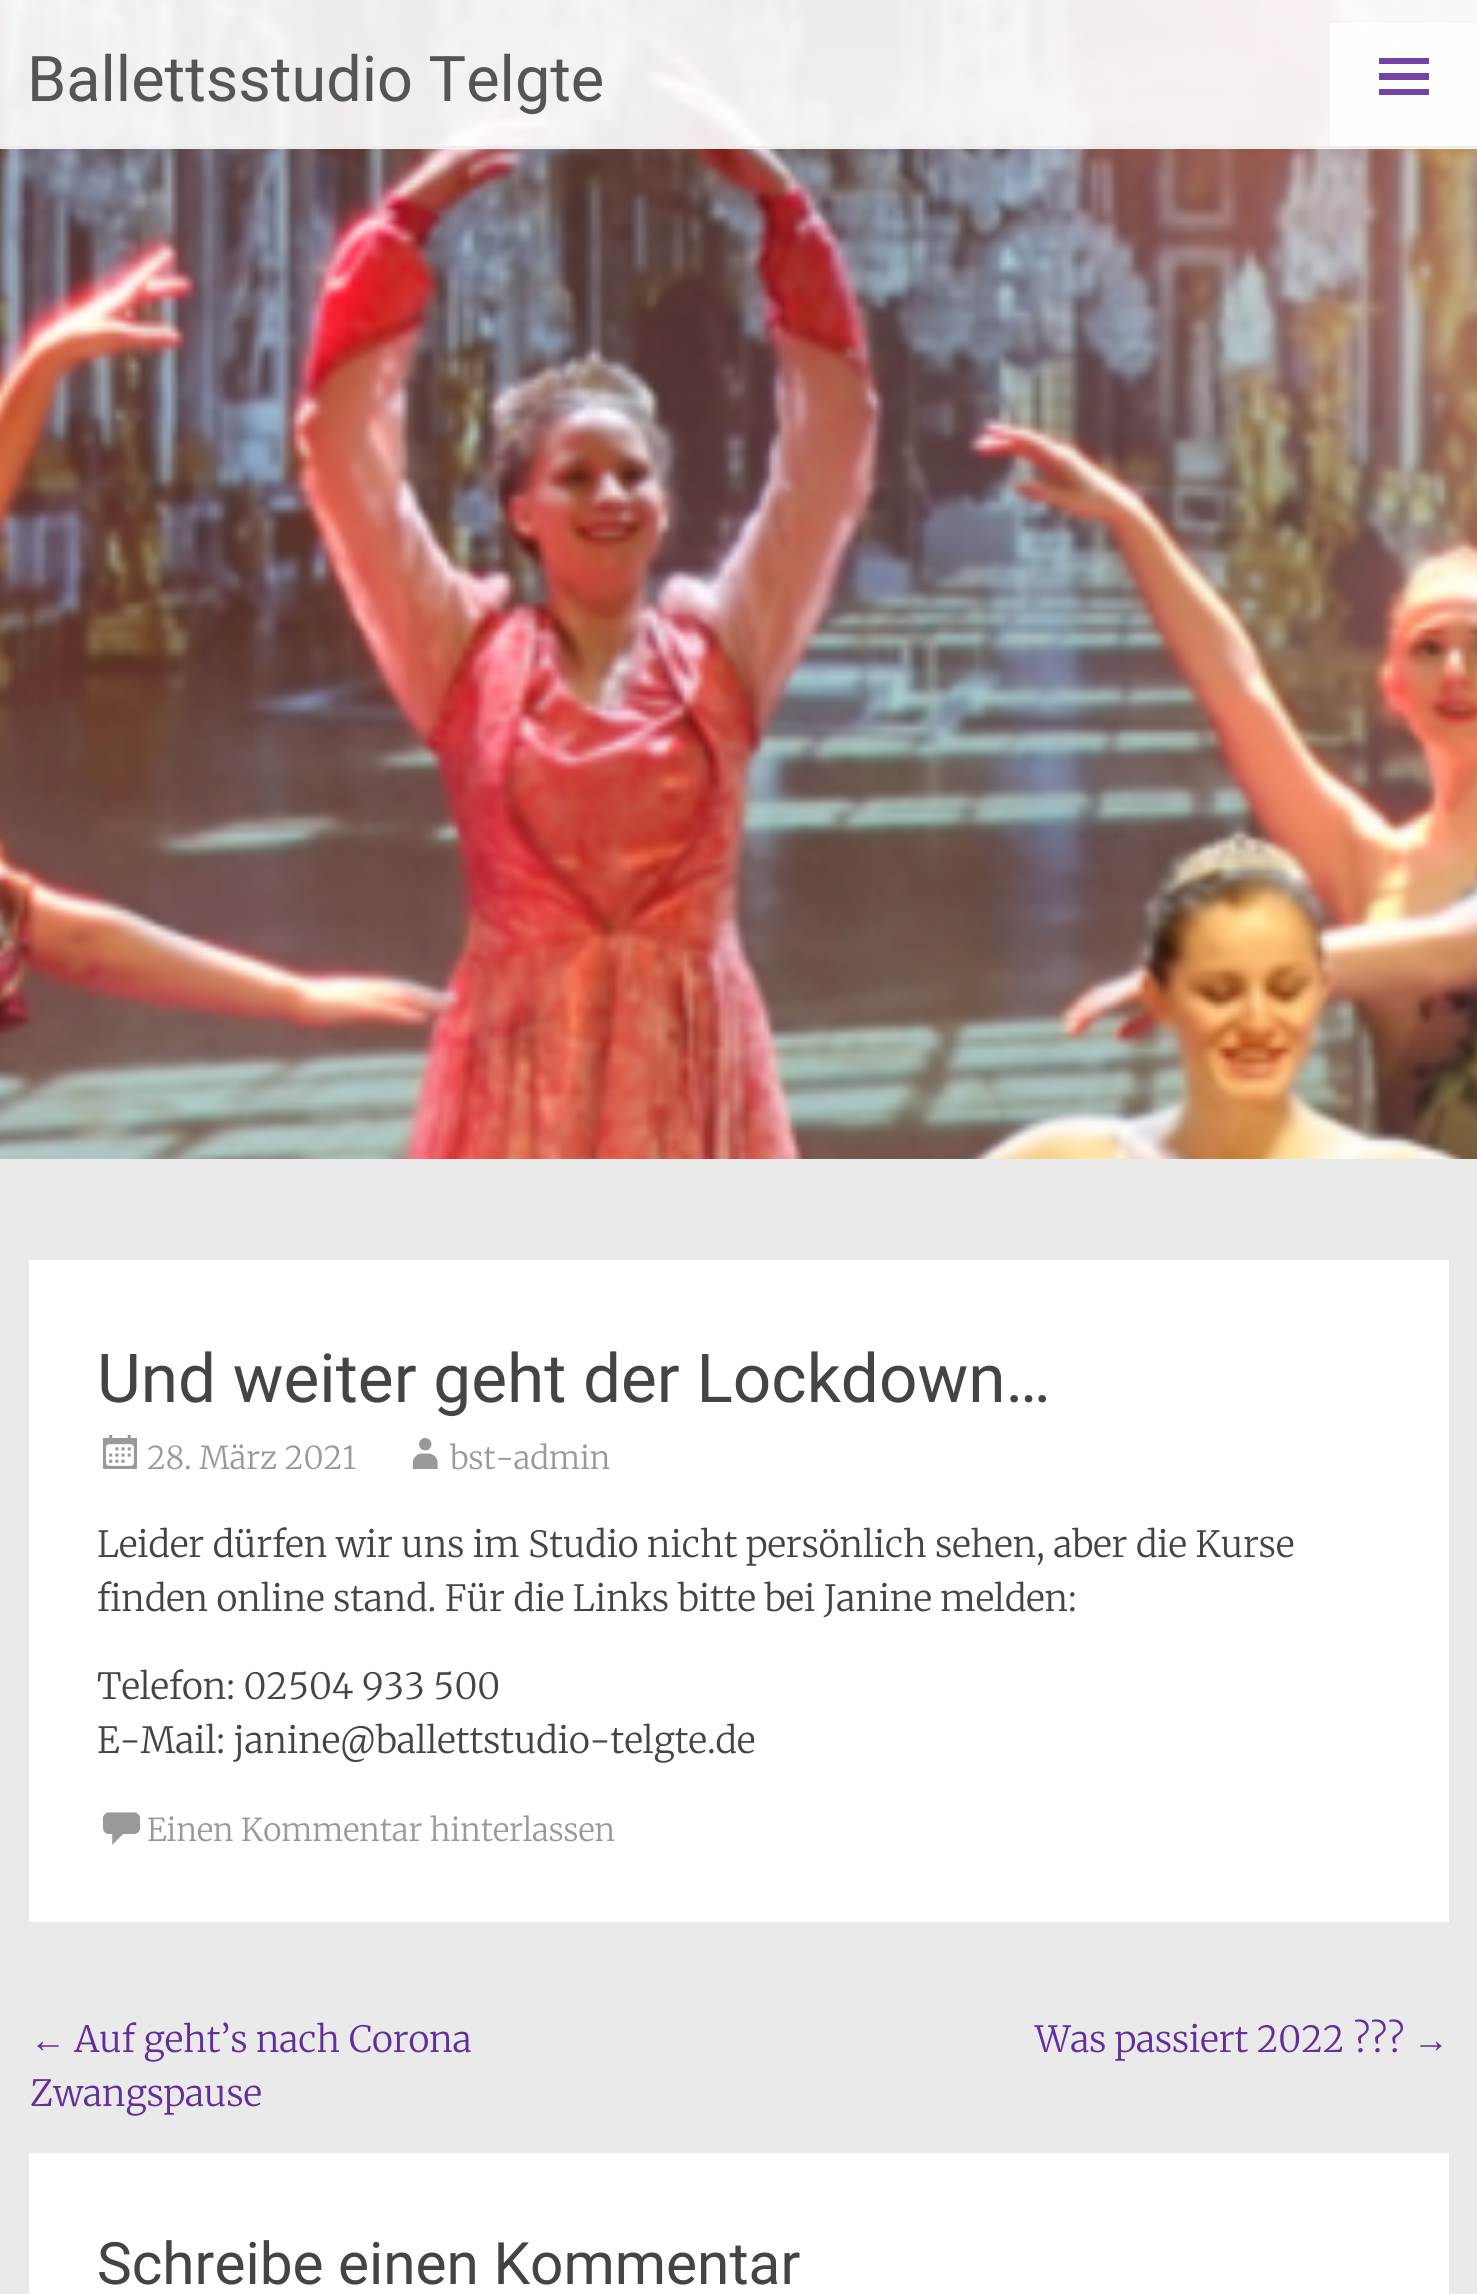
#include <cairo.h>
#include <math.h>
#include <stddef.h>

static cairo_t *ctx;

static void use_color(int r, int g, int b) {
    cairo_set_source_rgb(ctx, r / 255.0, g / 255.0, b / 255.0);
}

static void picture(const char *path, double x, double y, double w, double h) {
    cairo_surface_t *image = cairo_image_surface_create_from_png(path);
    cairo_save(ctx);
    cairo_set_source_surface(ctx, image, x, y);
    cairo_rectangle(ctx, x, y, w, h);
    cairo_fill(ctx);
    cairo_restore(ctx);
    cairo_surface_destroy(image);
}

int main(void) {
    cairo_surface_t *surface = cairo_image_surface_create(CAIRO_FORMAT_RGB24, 1477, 2294);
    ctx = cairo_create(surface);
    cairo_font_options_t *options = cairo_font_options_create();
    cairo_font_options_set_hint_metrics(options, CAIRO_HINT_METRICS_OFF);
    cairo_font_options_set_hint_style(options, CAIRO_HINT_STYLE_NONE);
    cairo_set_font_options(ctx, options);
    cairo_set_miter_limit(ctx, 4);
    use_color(255, 255, 255);
    cairo_paint(ctx);
    picture("img1.png", 0, 0, 1477, 1159);
    cairo_set_source_rgba(ctx, 1, 1, 1, 0.9);
    cairo_rectangle(ctx, 0, 0, 1477, 149);
    cairo_fill(ctx);
    cairo_set_source_rgba(ctx, 0.918, 0.918, 0.918, 0.9);
    cairo_rectangle(ctx, 0, 146, 1477, 2);
    cairo_fill(ctx);
    cairo_select_font_face(ctx, "Roboto", CAIRO_FONT_SLANT_NORMAL, CAIRO_FONT_WEIGHT_NORMAL);
    cairo_set_font_size(ctx, 63);
    use_color(85, 85, 85);
    cairo_move_to(ctx, 27, 101);
    cairo_show_text(ctx, "Ballettsstudio Telgte");
    cairo_set_source_rgba(ctx, 1, 1, 1, 0.9);
    cairo_rectangle(ctx, 1330, 23, 147, 123);
    cairo_fill(ctx);
    use_color(115, 67, 165);
    cairo_new_path(ctx);
    cairo_move_to(ctx, 1379, 95);
    cairo_line_to(ctx, 1379, 89);
    cairo_line_to(ctx, 1429, 89);
    cairo_line_to(ctx, 1429, 95);
    cairo_close_path(ctx);
    cairo_move_to(ctx, 1379, 58);
    cairo_line_to(ctx, 1429, 58);
    cairo_line_to(ctx, 1429, 64);
    cairo_line_to(ctx, 1379, 64);
    cairo_close_path(ctx);
    cairo_move_to(ctx, 1379, 80);
    cairo_line_to(ctx, 1379, 73);
    cairo_line_to(ctx, 1429, 73);
    cairo_line_to(ctx, 1429, 80);
    cairo_close_path(ctx);
    cairo_fill(ctx);
    use_color(234, 234, 234);
    cairo_rectangle(ctx, 0, 1159, 1477, 1135);
    cairo_fill(ctx);
    use_color(255, 255, 255);
    cairo_rectangle(ctx, 29, 1260, 1420, 662);
    cairo_fill(ctx);
    cairo_set_font_size(ctx, 67.5);
    use_color(68, 68, 68);
    cairo_move_to(ctx, 97, 1402);
    cairo_show_text(ctx, "Und weiter geht der Lockdown…");
    picture("img2.png", 102, 1434, 35, 35);
    cairo_select_font_face(ctx, "Merriweather Light", CAIRO_FONT_SLANT_NORMAL, CAIRO_FONT_WEIGHT_NORMAL);
    cairo_set_font_size(ctx, 31.5);
    use_color(153, 153, 153);
    cairo_move_to(ctx, 147, 1469);
    cairo_show_text(ctx, "28. März 2021");
    picture("img3.png", 412, 1438, 26, 31);
    cairo_move_to(ctx, 450, 1469);
    cairo_show_text(ctx, "bst-admin");
    cairo_set_font_size(ctx, 36);
    use_color(68, 68, 68);
    cairo_move_to(ctx, 97, 1557);
    cairo_show_text(ctx, "Leider dürfen wir uns im Studio nicht persönlich sehen, aber die Kurse");
    cairo_move_to(ctx, 97, 1611);
    cairo_show_text(ctx, "finden online stand. Für die Links bitte bei Janine melden:");
    cairo_move_to(ctx, 97, 1699);
    cairo_show_text(ctx, "Telefon: 02504 933 500");
    cairo_move_to(ctx, 97, 1753);
    cairo_show_text(ctx, "E-Mail: janine@ballettstudio-telgte.de");
    picture("img4.png", 102, 1812, 39, 33);
    cairo_set_font_size(ctx, 31.5);
    use_color(153, 153, 153);
    cairo_move_to(ctx, 147, 1841);
    cairo_show_text(ctx, "Einen Kommentar hinterlassen");
    cairo_select_font_face(ctx, "Liberation Serif", CAIRO_FONT_SLANT_NORMAL, CAIRO_FONT_WEIGHT_NORMAL);
    cairo_set_font_size(ctx, 36);
    use_color(99, 46, 155);
    cairo_move_to(ctx, 30, 2052);
    cairo_show_text(ctx, "←");
    cairo_select_font_face(ctx, "Merriweather Light", CAIRO_FONT_SLANT_NORMAL, CAIRO_FONT_WEIGHT_NORMAL);
    cairo_move_to(ctx, 74, 2052);
    cairo_show_text(ctx, "Auf geht’s nach Corona");
    cairo_move_to(ctx, 30, 2106);
    cairo_show_text(ctx, "Zwangspause");
    cairo_move_to(ctx, 1035, 2052);
    cairo_show_text(ctx, "Was passiert 2022 ?\077?");
    cairo_select_font_face(ctx, "Liberation Serif", CAIRO_FONT_SLANT_NORMAL, CAIRO_FONT_WEIGHT_NORMAL);
    cairo_move_to(ctx, 1413, 2052);
    cairo_show_text(ctx, "→");
    use_color(255, 255, 255);
    cairo_rectangle(ctx, 29, 2153, 1420, 141);
    cairo_fill(ctx);
    cairo_select_font_face(ctx, "Roboto", CAIRO_FONT_SLANT_NORMAL, CAIRO_FONT_WEIGHT_NORMAL);
    cairo_set_font_size(ctx, 58.5);
    use_color(68, 68, 68);
    cairo_move_to(ctx, 97, 2284);
    cairo_show_text(ctx, "Schreibe einen Kommentar");
    cairo_surface_write_to_png(surface, "result.png");
    cairo_font_options_destroy(options);
    cairo_destroy(ctx);
    cairo_surface_destroy(surface);
    return 0;
}
